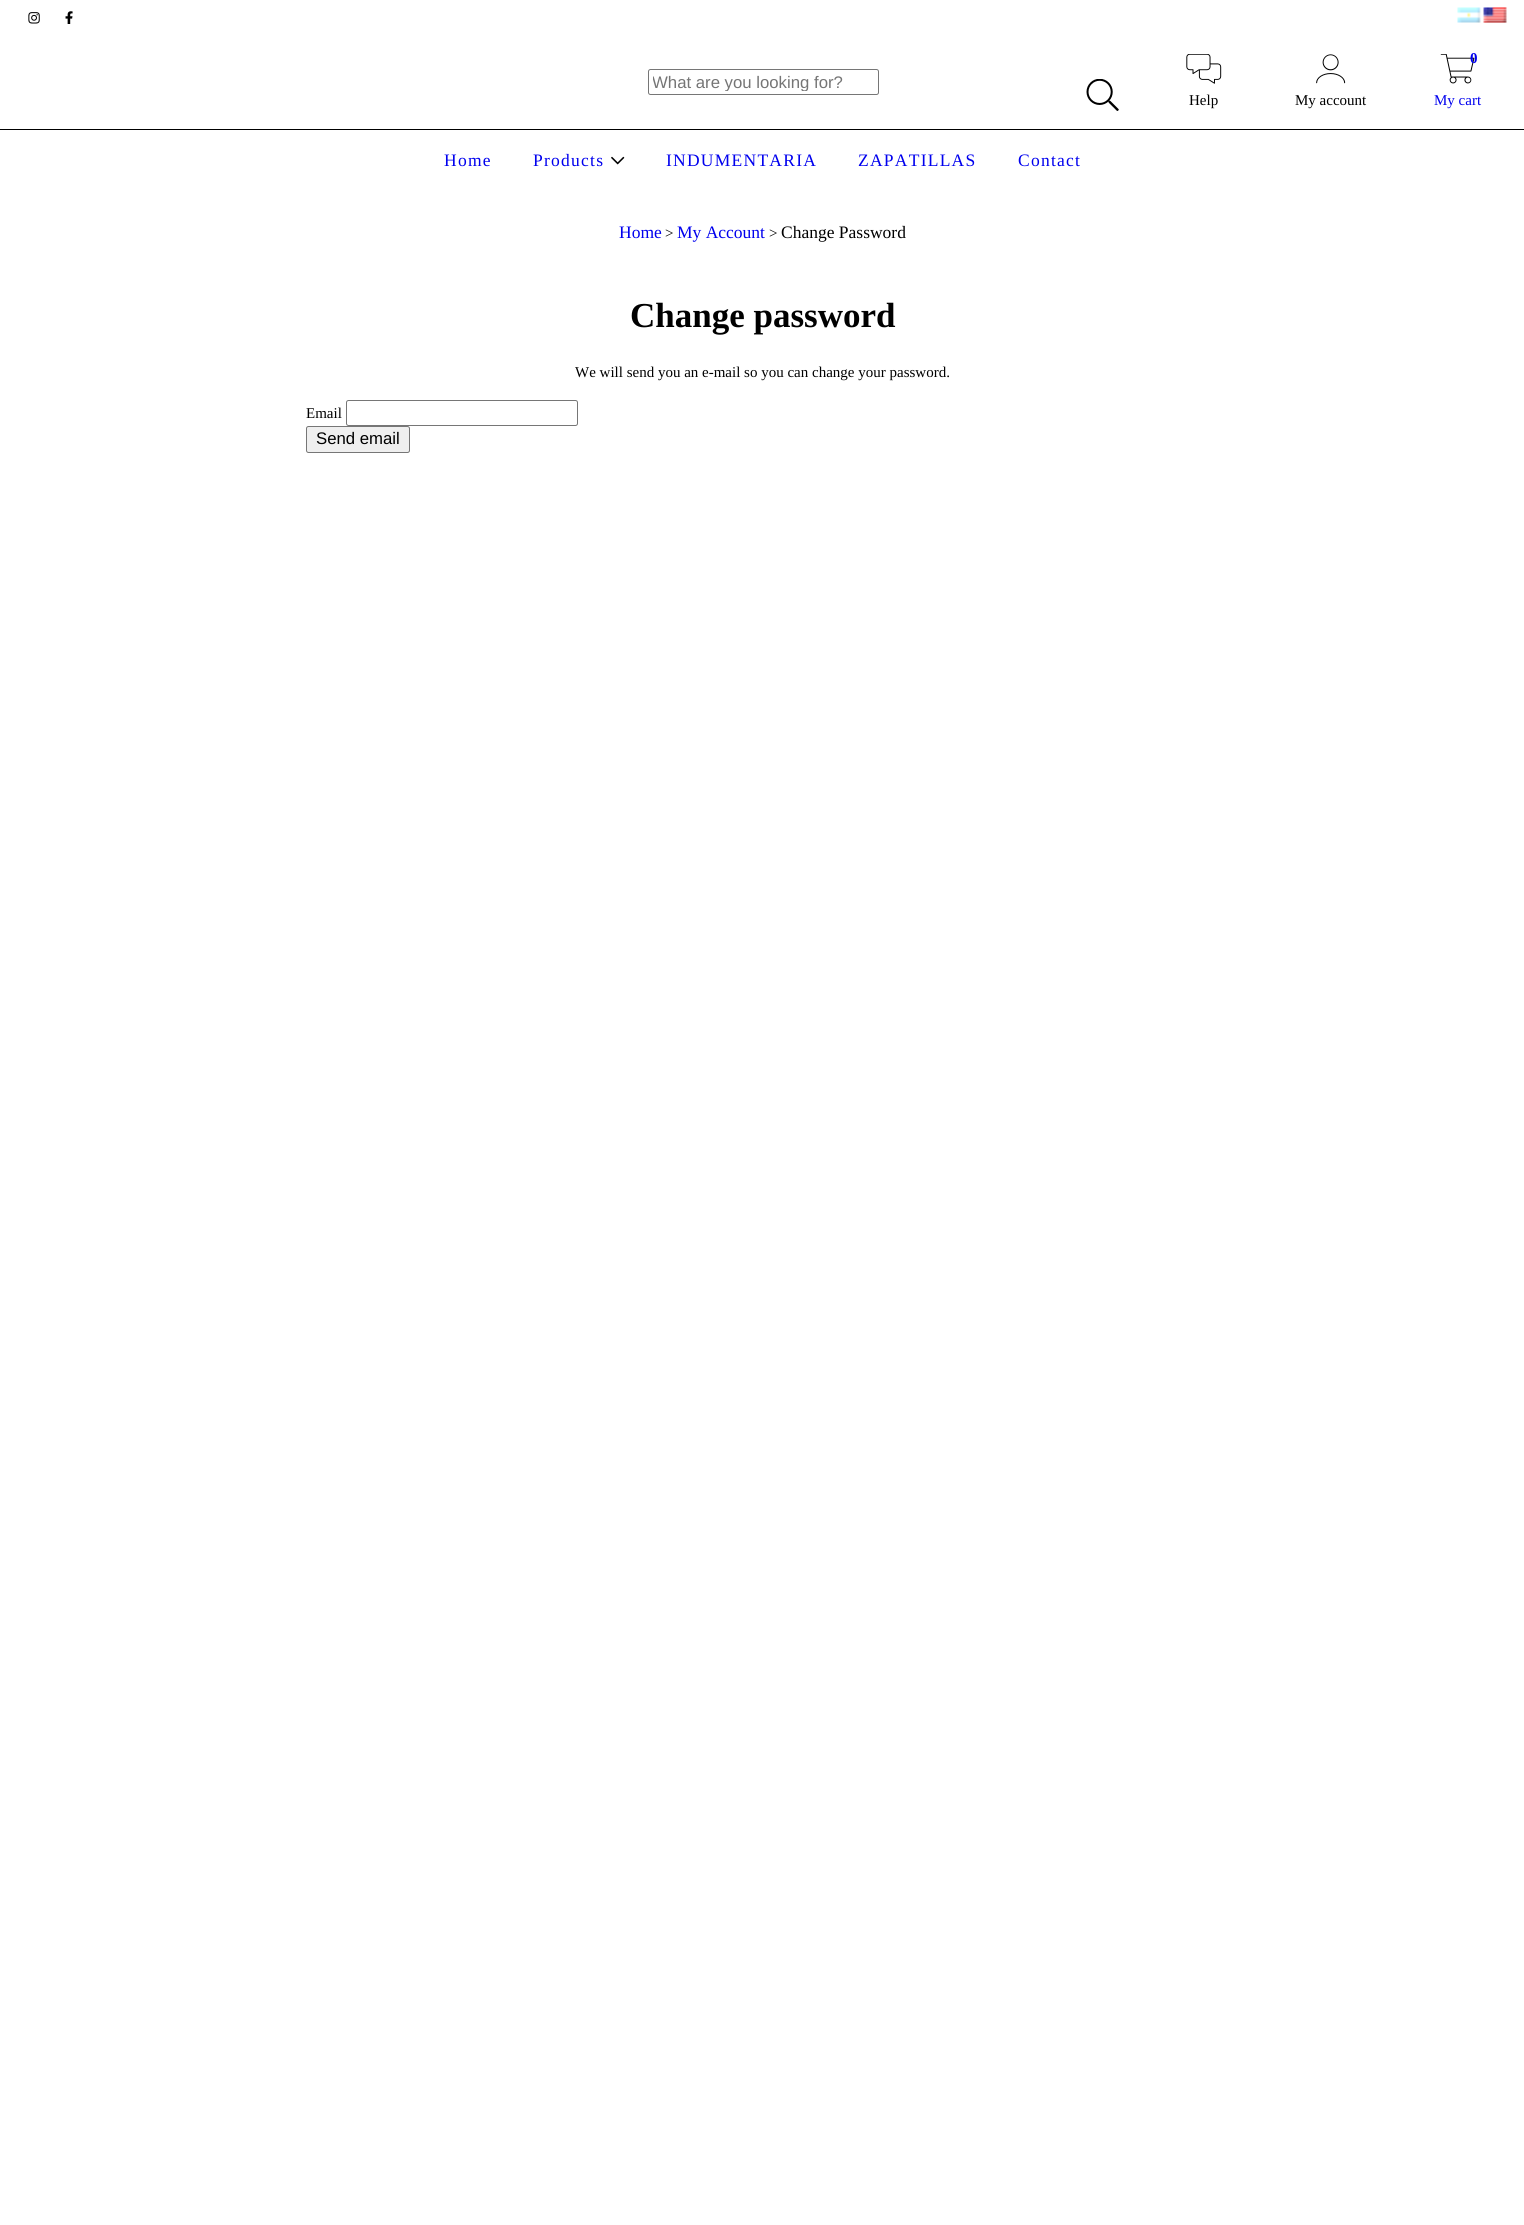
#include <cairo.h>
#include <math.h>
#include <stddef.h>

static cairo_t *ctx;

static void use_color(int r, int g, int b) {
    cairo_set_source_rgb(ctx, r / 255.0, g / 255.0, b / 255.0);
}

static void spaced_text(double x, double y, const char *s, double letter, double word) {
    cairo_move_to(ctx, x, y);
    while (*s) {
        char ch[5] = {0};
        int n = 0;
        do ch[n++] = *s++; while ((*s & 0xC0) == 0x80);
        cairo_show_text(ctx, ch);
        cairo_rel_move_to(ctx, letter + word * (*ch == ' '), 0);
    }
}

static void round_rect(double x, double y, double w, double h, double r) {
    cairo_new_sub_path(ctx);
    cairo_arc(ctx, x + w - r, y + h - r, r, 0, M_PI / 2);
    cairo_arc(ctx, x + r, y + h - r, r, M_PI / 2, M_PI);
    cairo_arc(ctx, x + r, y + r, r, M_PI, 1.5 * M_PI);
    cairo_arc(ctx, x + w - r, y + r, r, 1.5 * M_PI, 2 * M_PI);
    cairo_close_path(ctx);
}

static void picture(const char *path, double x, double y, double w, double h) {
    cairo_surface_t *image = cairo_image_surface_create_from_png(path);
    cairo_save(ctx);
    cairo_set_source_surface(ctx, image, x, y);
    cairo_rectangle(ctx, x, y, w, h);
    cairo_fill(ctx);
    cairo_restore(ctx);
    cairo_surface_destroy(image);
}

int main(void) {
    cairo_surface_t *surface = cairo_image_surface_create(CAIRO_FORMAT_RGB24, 1524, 2225);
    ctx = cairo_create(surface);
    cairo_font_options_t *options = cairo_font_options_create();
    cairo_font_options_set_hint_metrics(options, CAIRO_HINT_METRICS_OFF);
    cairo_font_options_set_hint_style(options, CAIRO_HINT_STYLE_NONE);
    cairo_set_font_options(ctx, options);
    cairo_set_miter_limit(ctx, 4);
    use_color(255, 255, 255);
    cairo_paint(ctx);
    picture("img1.png", 28, 12, 12, 12);
    picture("img2.png", 65, 11, 8, 13);
    picture("img3.png", 1457, 7, 24, 16);
    picture("img4.png", 1483, 7, 24, 16);
    round_rect(648.5, 69.5, 230, 25, 2);
    use_color(118, 118, 118);
    cairo_set_line_width(ctx, 1);
    cairo_stroke(ctx);
    cairo_save(ctx);
    cairo_rectangle(ctx, 653, 73, 205, 18);
    cairo_clip(ctx);
    cairo_select_font_face(ctx, "Liberation Sans", CAIRO_FONT_SLANT_NORMAL, CAIRO_FONT_WEIGHT_NORMAL);
    cairo_set_font_size(ctx, 16.75);
    use_color(117, 117, 117);
    cairo_move_to(ctx, 652, 88);
    cairo_show_text(ctx, "What are you looking for?");
    cairo_restore(ctx);
    picture("img5.png", 1086, 79, 33, 32);
    picture("img6.png", 1186, 54, 36, 30);
    cairo_select_font_face(ctx, "Liberation Serif", CAIRO_FONT_SLANT_NORMAL, CAIRO_FONT_WEIGHT_NORMAL);
    cairo_set_font_size(ctx, 15);
    use_color(0, 0, 0);
    cairo_move_to(ctx, 1189, 105);
    cairo_show_text(ctx, "Help");
    picture("img7.png", 1316, 54, 30, 30);
    cairo_move_to(ctx, 1295, 105);
    cairo_show_text(ctx, "My account");
    picture("img8.png", 1440, 54, 35, 30);
    cairo_select_font_face(ctx, "Liberation Serif", CAIRO_FONT_SLANT_NORMAL, CAIRO_FONT_WEIGHT_BOLD);
    use_color(0, 0, 238);
    cairo_move_to(ctx, 1470, 63);
    cairo_show_text(ctx, "0");
    cairo_select_font_face(ctx, "Liberation Serif", CAIRO_FONT_SLANT_NORMAL, CAIRO_FONT_WEIGHT_NORMAL);
    cairo_move_to(ctx, 1434, 105);
    cairo_show_text(ctx, "My cart");
    use_color(0, 0, 0);
    cairo_rectangle(ctx, 0, 129, 1524, 1);
    cairo_fill(ctx);
    cairo_set_font_size(ctx, 17.5);
    use_color(0, 0, 238);
    spaced_text(444, 166, "Home", 1.25, 0);
    spaced_text(533, 166, "Products", 1.25, 0);
    picture("img9.png", 611, 156, 14, 9);
    spaced_text(666, 166, "INDUMENTARIA", 1.25, 0);
    spaced_text(858, 166, "ZAPATILLAS", 1.25, 0);
    spaced_text(1018, 166, "Contact", 1.25, 0);
    cairo_move_to(ctx, 619, 238);
    cairo_show_text(ctx, "Home");
    cairo_set_font_size(ctx, 15);
    use_color(0, 0, 0);
    cairo_move_to(ctx, 665, 238);
    cairo_show_text(ctx, ">");
    cairo_set_font_size(ctx, 17.5);
    use_color(0, 0, 238);
    cairo_move_to(ctx, 677, 238);
    cairo_show_text(ctx, "My Account");
    cairo_set_font_size(ctx, 15);
    use_color(0, 0, 0);
    cairo_move_to(ctx, 769, 238);
    cairo_show_text(ctx, ">");
    cairo_set_font_size(ctx, 17.5);
    cairo_move_to(ctx, 781, 238);
    cairo_show_text(ctx, "Change Password");
    cairo_select_font_face(ctx, "Liberation Serif", CAIRO_FONT_SLANT_NORMAL, CAIRO_FONT_WEIGHT_BOLD);
    cairo_set_font_size(ctx, 35);
    cairo_move_to(ctx, 630, 327);
    cairo_show_text(ctx, "Change password");
    cairo_select_font_face(ctx, "Liberation Serif", CAIRO_FONT_SLANT_NORMAL, CAIRO_FONT_WEIGHT_NORMAL);
    cairo_set_font_size(ctx, 15);
    cairo_move_to(ctx, 575, 377);
    cairo_show_text(ctx, "We will send you an e-mail so you can change your password.");
    cairo_move_to(ctx, 306, 418);
    cairo_show_text(ctx, "Email");
    round_rect(346.5, 400.5, 231, 25, 2);
    use_color(118, 118, 118);
    cairo_stroke(ctx);
    use_color(239, 239, 239);
    round_rect(306.5, 426.5, 103, 26, 2);
    cairo_fill_preserve(ctx);
    use_color(118, 118, 118);
    cairo_stroke(ctx);
    cairo_select_font_face(ctx, "Liberation Sans", CAIRO_FONT_SLANT_NORMAL, CAIRO_FONT_WEIGHT_NORMAL);
    cairo_set_font_size(ctx, 16.75);
    use_color(0, 0, 0);
    cairo_move_to(ctx, 316, 444);
    cairo_show_text(ctx, "Send email");
    cairo_surface_write_to_png(surface, "result.png");
    cairo_font_options_destroy(options);
    cairo_destroy(ctx);
    cairo_surface_destroy(surface);
    return 0;
}
